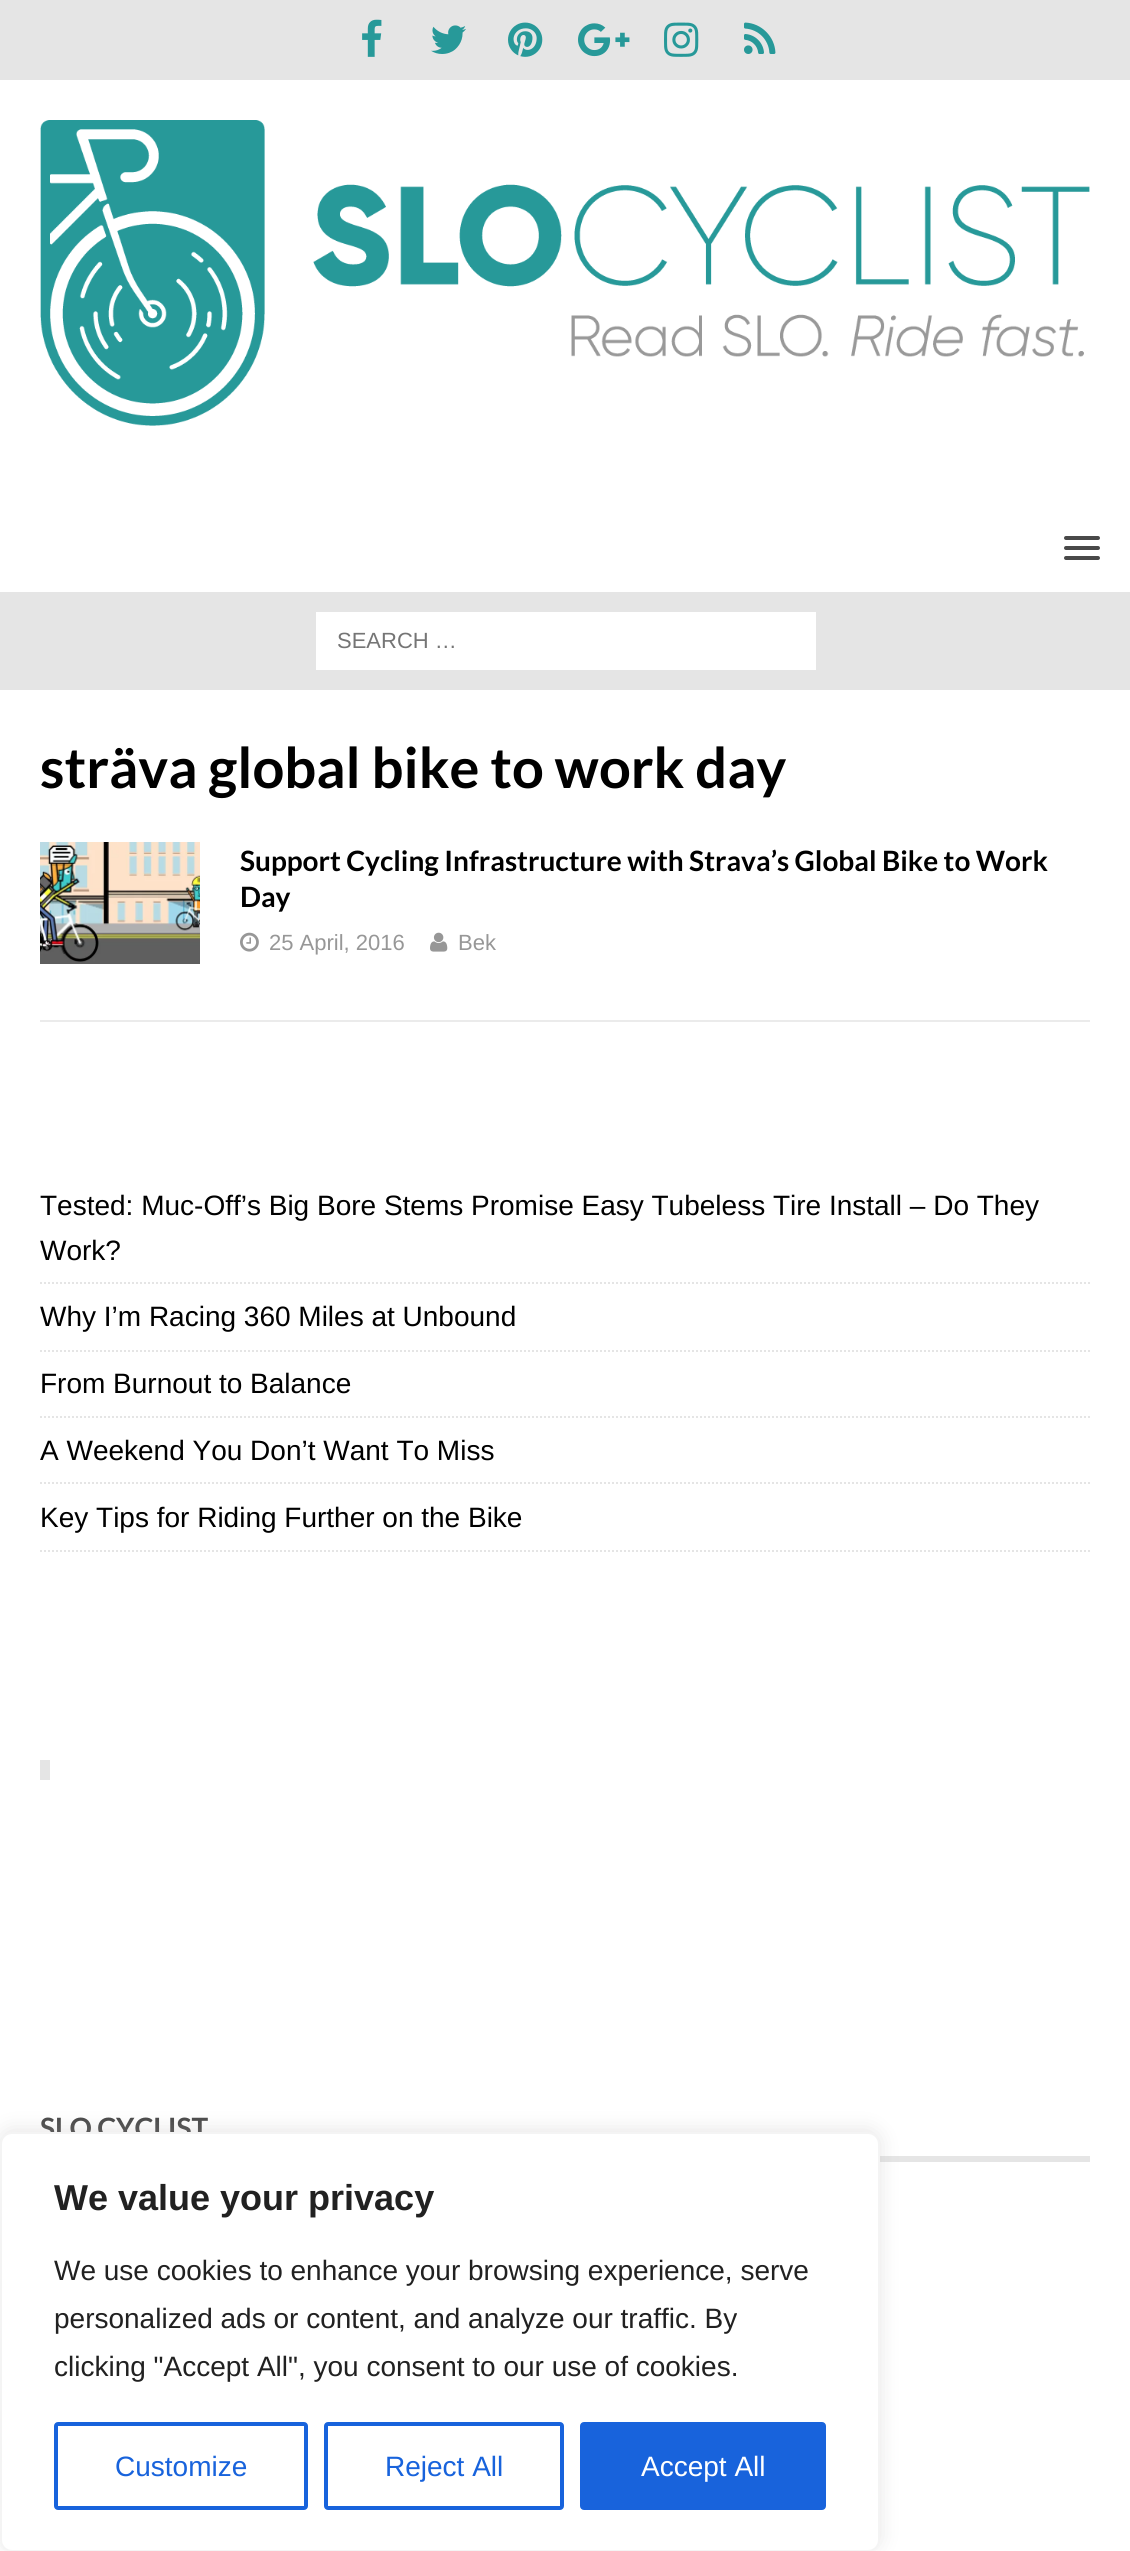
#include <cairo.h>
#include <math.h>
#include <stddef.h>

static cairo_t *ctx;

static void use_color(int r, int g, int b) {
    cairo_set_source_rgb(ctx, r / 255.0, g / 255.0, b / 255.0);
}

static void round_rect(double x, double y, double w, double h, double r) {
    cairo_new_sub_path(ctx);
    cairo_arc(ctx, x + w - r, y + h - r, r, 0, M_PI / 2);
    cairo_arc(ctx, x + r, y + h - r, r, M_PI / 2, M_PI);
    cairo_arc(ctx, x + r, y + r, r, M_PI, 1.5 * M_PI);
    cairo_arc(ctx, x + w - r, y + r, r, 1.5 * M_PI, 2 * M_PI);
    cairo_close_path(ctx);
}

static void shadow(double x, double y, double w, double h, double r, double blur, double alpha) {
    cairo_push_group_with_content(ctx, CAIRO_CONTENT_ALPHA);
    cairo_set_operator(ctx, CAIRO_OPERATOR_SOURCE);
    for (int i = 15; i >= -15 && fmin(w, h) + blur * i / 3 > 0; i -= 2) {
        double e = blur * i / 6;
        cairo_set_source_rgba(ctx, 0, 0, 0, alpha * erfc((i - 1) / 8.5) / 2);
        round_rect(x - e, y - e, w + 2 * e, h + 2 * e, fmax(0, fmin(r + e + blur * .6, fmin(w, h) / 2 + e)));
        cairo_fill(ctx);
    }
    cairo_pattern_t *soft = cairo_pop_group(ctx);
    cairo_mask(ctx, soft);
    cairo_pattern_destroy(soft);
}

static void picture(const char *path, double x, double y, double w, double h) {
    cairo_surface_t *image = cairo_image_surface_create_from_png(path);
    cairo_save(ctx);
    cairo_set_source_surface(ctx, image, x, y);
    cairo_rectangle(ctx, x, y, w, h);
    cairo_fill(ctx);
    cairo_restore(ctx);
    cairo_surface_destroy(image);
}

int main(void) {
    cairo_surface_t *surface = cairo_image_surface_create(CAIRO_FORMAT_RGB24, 1130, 2551);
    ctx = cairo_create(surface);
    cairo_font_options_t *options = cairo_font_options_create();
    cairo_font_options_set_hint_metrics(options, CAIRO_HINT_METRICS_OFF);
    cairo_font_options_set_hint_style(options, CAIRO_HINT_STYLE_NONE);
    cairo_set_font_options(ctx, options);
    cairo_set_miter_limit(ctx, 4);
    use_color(255, 255, 255);
    cairo_paint(ctx);
    use_color(229, 229, 229);
    cairo_rectangle(ctx, 0, 0, 1130, 80);
    cairo_fill(ctx);
    picture("img1.png", 362, 19, 20, 38);
    picture("img2.png", 431, 25, 35, 29);
    picture("img3.png", 508, 22, 35, 35);
    picture("img4.png", 578, 23, 52, 34);
    picture("img5.png", 664, 22, 35, 35);
    picture("img6.png", 744, 22, 32, 32);
    picture("img7.png", 40, 120, 1050, 306);
    use_color(73, 73, 73);
    round_rect(1064, 536, 36, 4, 2);
    cairo_fill(ctx);
    round_rect(1064, 546, 36, 4, 2);
    cairo_fill(ctx);
    round_rect(1064, 556, 36, 4, 2);
    cairo_fill(ctx);
    use_color(229, 229, 229);
    cairo_rectangle(ctx, 0, 592, 1130, 98);
    cairo_fill(ctx);
    use_color(255, 255, 255);
    cairo_rectangle(ctx, 316, 612, 500, 58);
    cairo_fill(ctx);
    cairo_select_font_face(ctx, "Liberation Sans", CAIRO_FONT_SLANT_NORMAL, CAIRO_FONT_WEIGHT_NORMAL);
    cairo_set_font_size(ctx, 22);
    use_color(117, 117, 117);
    cairo_move_to(ctx, 337, 648);
    cairo_show_text(ctx, "SEARCH …");
    cairo_select_font_face(ctx, "Lato", CAIRO_FONT_SLANT_NORMAL, CAIRO_FONT_WEIGHT_BOLD);
    cairo_set_font_size(ctx, 56);
    use_color(0, 0, 0);
    cairo_move_to(ctx, 40, 788);
    cairo_show_text(ctx, "sträva global bike to work day");
    use_color(235, 235, 235);
    cairo_rectangle(ctx, 40, 1020, 1050, 2);
    cairo_fill(ctx);
    picture("img8.png", 40, 842, 160, 122);
    cairo_set_font_size(ctx, 28);
    use_color(0, 0, 0);
    cairo_move_to(ctx, 240, 871);
    cairo_show_text(ctx, "Support Cycling Infrastructure with Strava’s Global Bike to Work");
    cairo_move_to(ctx, 240, 907);
    cairo_show_text(ctx, "Day");
    picture("img9.png", 240, 932, 19, 20);
    cairo_select_font_face(ctx, "Arimo", CAIRO_FONT_SLANT_NORMAL, CAIRO_FONT_WEIGHT_NORMAL);
    cairo_set_font_size(ctx, 22);
    use_color(151, 151, 151);
    cairo_move_to(ctx, 269, 950);
    cairo_show_text(ctx, "25 April, 2016");
    picture("img10.png", 430, 932, 18, 20);
    cairo_move_to(ctx, 458, 950);
    cairo_show_text(ctx, "Bek");
    cairo_new_path(ctx);
    cairo_move_to(ctx, 40, 1283);
    cairo_line_to(ctx, 1090, 1283);
    use_color(229, 229, 229);
    cairo_set_dash(ctx, (double[]){2, 2}, 2, 0);
    cairo_stroke(ctx);
    cairo_set_font_size(ctx, 28);
    use_color(0, 0, 0);
    cairo_move_to(ctx, 40, 1215);
    cairo_show_text(ctx, "Tested: Muc-Off’s Big Bore Stems Promise Easy Tubeless Tire Install – Do They");
    cairo_move_to(ctx, 40, 1260);
    cairo_show_text(ctx, "Work?");
    cairo_new_path(ctx);
    cairo_move_to(ctx, 40, 1351);
    cairo_line_to(ctx, 1090, 1351);
    use_color(229, 229, 229);
    cairo_stroke(ctx);
    use_color(0, 0, 0);
    cairo_move_to(ctx, 40, 1326);
    cairo_show_text(ctx, "Why I’m Racing 360 Miles at Unbound");
    cairo_new_path(ctx);
    cairo_move_to(ctx, 40, 1417);
    cairo_line_to(ctx, 1090, 1417);
    use_color(229, 229, 229);
    cairo_stroke(ctx);
    use_color(0, 0, 0);
    cairo_move_to(ctx, 40, 1393);
    cairo_show_text(ctx, "From Burnout to Balance");
    cairo_new_path(ctx);
    cairo_move_to(ctx, 40, 1483);
    cairo_line_to(ctx, 1090, 1483);
    use_color(229, 229, 229);
    cairo_stroke(ctx);
    use_color(0, 0, 0);
    cairo_move_to(ctx, 40, 1460);
    cairo_show_text(ctx, "A Weekend You Don’t Want To Miss");
    cairo_new_path(ctx);
    cairo_move_to(ctx, 40, 1551);
    cairo_line_to(ctx, 1090, 1551);
    use_color(229, 229, 229);
    cairo_stroke(ctx);
    use_color(0, 0, 0);
    cairo_move_to(ctx, 40, 1527);
    cairo_show_text(ctx, "Key Tips for Riding Further on the Bike");
    use_color(229, 229, 229);
    cairo_rectangle(ctx, 40, 1760, 10, 20);
    cairo_fill(ctx);
    cairo_rectangle(ctx, 880, 2156, 210, 6);
    cairo_fill(ctx);
    cairo_select_font_face(ctx, "Lato", CAIRO_FONT_SLANT_NORMAL, CAIRO_FONT_WEIGHT_BOLD);
    use_color(73, 73, 73);
    cairo_move_to(ctx, 40, 2138);
    cairo_show_text(ctx, "SLO CYCLIST");
    use_color(172, 171, 171);
    shadow(0, 2130, 880, 420, 12, 10, 0.3);
    use_color(255, 255, 255);
    round_rect(1, 2133, 878, 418, 11);
    cairo_fill_preserve(ctx);
    use_color(244, 244, 244);
    cairo_set_dash(ctx, NULL, 0, 0);
    cairo_stroke(ctx);
    cairo_select_font_face(ctx, "Arimo", CAIRO_FONT_SLANT_NORMAL, CAIRO_FONT_WEIGHT_BOLD);
    cairo_set_font_size(ctx, 36);
    use_color(33, 33, 33);
    cairo_move_to(ctx, 54, 2210);
    cairo_show_text(ctx, "We value your privacy");
    cairo_select_font_face(ctx, "Arimo", CAIRO_FONT_SLANT_NORMAL, CAIRO_FONT_WEIGHT_NORMAL);
    cairo_set_font_size(ctx, 28);
    cairo_move_to(ctx, 54, 2280);
    cairo_show_text(ctx, "We use cookies to enhance your browsing experience, serve");
    cairo_move_to(ctx, 54, 2328);
    cairo_show_text(ctx, "personalized ads or content, and analyze our traffic. By");
    cairo_move_to(ctx, 54, 2376);
    cairo_show_text(ctx, "clicking \"Accept All\", you consent to our use of cookies.");
    round_rect(56, 2424, 250, 84, 2);
    use_color(24, 99, 220);
    cairo_set_line_width(ctx, 4);
    cairo_stroke(ctx);
    cairo_move_to(ctx, 115, 2476);
    cairo_show_text(ctx, "Customize");
    round_rect(326, 2424, 236, 84, 2);
    cairo_stroke(ctx);
    cairo_move_to(ctx, 385, 2476);
    cairo_show_text(ctx, "Reject All");
    round_rect(582, 2424, 242, 84, 2);
    cairo_fill_preserve(ctx);
    cairo_stroke(ctx);
    use_color(255, 255, 255);
    cairo_move_to(ctx, 641, 2476);
    cairo_show_text(ctx, "Accept All");
    cairo_surface_write_to_png(surface, "result.png");
    cairo_font_options_destroy(options);
    cairo_destroy(ctx);
    cairo_surface_destroy(surface);
    return 0;
}
